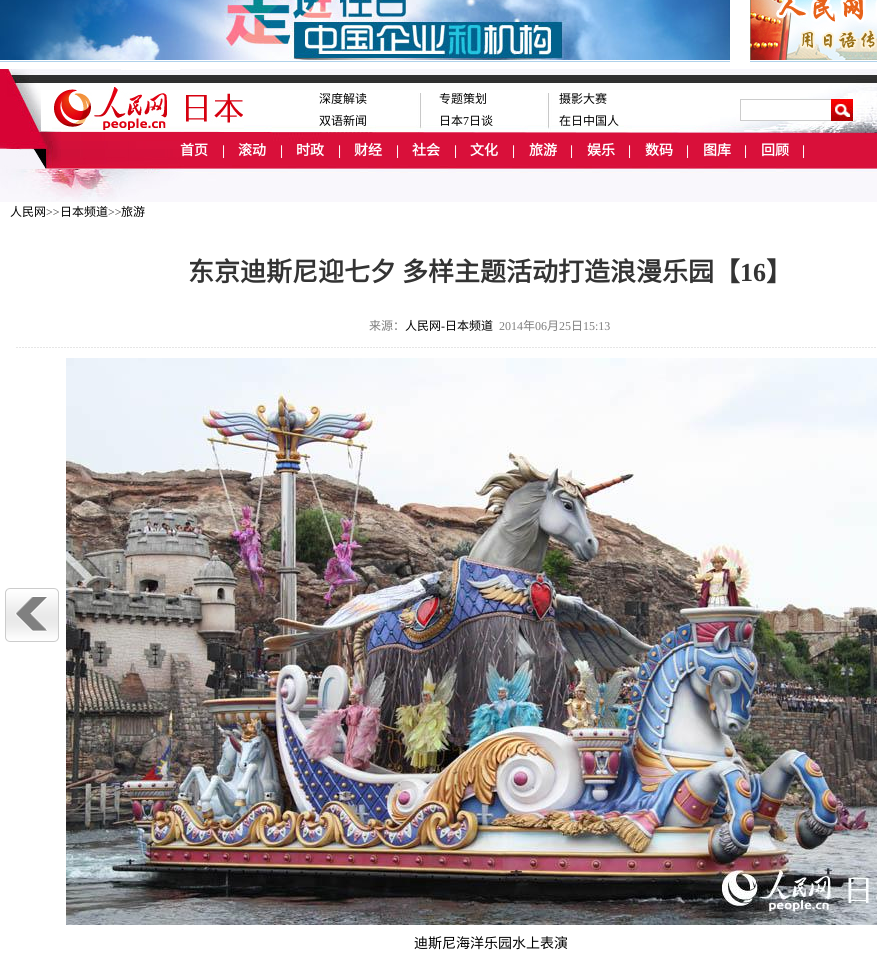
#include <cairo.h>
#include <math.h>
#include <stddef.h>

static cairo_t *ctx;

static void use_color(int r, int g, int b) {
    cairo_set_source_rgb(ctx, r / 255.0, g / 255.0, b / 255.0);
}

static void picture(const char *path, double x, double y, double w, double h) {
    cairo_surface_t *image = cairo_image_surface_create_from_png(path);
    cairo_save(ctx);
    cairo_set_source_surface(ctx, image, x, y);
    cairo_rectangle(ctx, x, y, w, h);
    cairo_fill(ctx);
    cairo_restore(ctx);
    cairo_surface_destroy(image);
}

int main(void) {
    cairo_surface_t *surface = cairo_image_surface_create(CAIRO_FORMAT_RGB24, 877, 976);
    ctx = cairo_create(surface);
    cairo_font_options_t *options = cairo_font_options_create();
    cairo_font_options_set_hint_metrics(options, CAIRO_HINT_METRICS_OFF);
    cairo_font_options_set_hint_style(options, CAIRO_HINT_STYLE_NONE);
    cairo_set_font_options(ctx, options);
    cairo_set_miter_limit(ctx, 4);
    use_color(255, 255, 255);
    cairo_paint(ctx);
    picture("img1.png", 0, 0, 730, 60);
    use_color(175, 209, 234);
    cairo_rectangle(ctx, 0, 61, 730, 1);
    cairo_fill(ctx);
    picture("img2.png", 750, 0, 127, 60);
    cairo_rectangle(ctx, 750, 61, 127, 1);
    cairo_fill(ctx);
    picture("img3.png", 0, 69, 877, 133);
    picture("img4.png", 52, 87, 116, 43);
    picture("img5.png", 168, 93, 76, 37);
    cairo_select_font_face(ctx, "Noto Sans CJK SC", CAIRO_FONT_SLANT_NORMAL, CAIRO_FONT_WEIGHT_NORMAL);
    cairo_set_font_size(ctx, 12);
    use_color(0, 0, 0);
    cairo_move_to(ctx, 319, 103);
    cairo_show_text(ctx, "深度解读");
    cairo_move_to(ctx, 319, 125);
    cairo_show_text(ctx, "双语新闻");
    cairo_move_to(ctx, 439, 103);
    cairo_show_text(ctx, "专题策划");
    cairo_move_to(ctx, 439, 125);
    cairo_show_text(ctx, "日本");
    cairo_select_font_face(ctx, "Liberation Serif", CAIRO_FONT_SLANT_NORMAL, CAIRO_FONT_WEIGHT_NORMAL);
    cairo_move_to(ctx, 463, 125);
    cairo_show_text(ctx, "7");
    cairo_select_font_face(ctx, "Noto Sans CJK SC", CAIRO_FONT_SLANT_NORMAL, CAIRO_FONT_WEIGHT_NORMAL);
    cairo_move_to(ctx, 469, 125);
    cairo_show_text(ctx, "日谈");
    cairo_move_to(ctx, 559, 103);
    cairo_show_text(ctx, "摄影大赛");
    cairo_move_to(ctx, 559, 125);
    cairo_show_text(ctx, "在日中国人");
    use_color(255, 255, 255);
    cairo_rectangle(ctx, 741, 100, 90, 20);
    cairo_fill(ctx);
    use_color(204, 204, 204);
    cairo_rectangle(ctx, 740, 99, 91, 1);
    cairo_fill(ctx);
    cairo_rectangle(ctx, 740, 120, 91, 1);
    cairo_fill(ctx);
    cairo_rectangle(ctx, 740, 99, 1, 22);
    cairo_fill(ctx);
    picture("img6.png", 831, 99, 22, 22);
    cairo_select_font_face(ctx, "Noto Sans CJK SC", CAIRO_FONT_SLANT_NORMAL, CAIRO_FONT_WEIGHT_BOLD);
    cairo_set_font_size(ctx, 14);
    use_color(255, 255, 255);
    cairo_move_to(ctx, 180, 155);
    cairo_show_text(ctx, "首页");
    cairo_select_font_face(ctx, "Liberation Serif", CAIRO_FONT_SLANT_NORMAL, CAIRO_FONT_WEIGHT_BOLD);
    cairo_move_to(ctx, 222, 155);
    cairo_show_text(ctx, "|");
    cairo_select_font_face(ctx, "Noto Sans CJK SC", CAIRO_FONT_SLANT_NORMAL, CAIRO_FONT_WEIGHT_BOLD);
    cairo_move_to(ctx, 238, 155);
    cairo_show_text(ctx, "滚动");
    cairo_select_font_face(ctx, "Liberation Serif", CAIRO_FONT_SLANT_NORMAL, CAIRO_FONT_WEIGHT_BOLD);
    cairo_move_to(ctx, 280, 155);
    cairo_show_text(ctx, "|");
    cairo_select_font_face(ctx, "Noto Sans CJK SC", CAIRO_FONT_SLANT_NORMAL, CAIRO_FONT_WEIGHT_BOLD);
    cairo_move_to(ctx, 296, 155);
    cairo_show_text(ctx, "时政");
    cairo_select_font_face(ctx, "Liberation Serif", CAIRO_FONT_SLANT_NORMAL, CAIRO_FONT_WEIGHT_BOLD);
    cairo_move_to(ctx, 338, 155);
    cairo_show_text(ctx, "|");
    cairo_select_font_face(ctx, "Noto Sans CJK SC", CAIRO_FONT_SLANT_NORMAL, CAIRO_FONT_WEIGHT_BOLD);
    cairo_move_to(ctx, 354, 155);
    cairo_show_text(ctx, "财经");
    cairo_select_font_face(ctx, "Liberation Serif", CAIRO_FONT_SLANT_NORMAL, CAIRO_FONT_WEIGHT_BOLD);
    cairo_move_to(ctx, 396, 155);
    cairo_show_text(ctx, "|");
    cairo_select_font_face(ctx, "Noto Sans CJK SC", CAIRO_FONT_SLANT_NORMAL, CAIRO_FONT_WEIGHT_BOLD);
    cairo_move_to(ctx, 412, 155);
    cairo_show_text(ctx, "社会");
    cairo_select_font_face(ctx, "Liberation Serif", CAIRO_FONT_SLANT_NORMAL, CAIRO_FONT_WEIGHT_BOLD);
    cairo_move_to(ctx, 454, 155);
    cairo_show_text(ctx, "|");
    cairo_select_font_face(ctx, "Noto Sans CJK SC", CAIRO_FONT_SLANT_NORMAL, CAIRO_FONT_WEIGHT_BOLD);
    cairo_move_to(ctx, 470, 155);
    cairo_show_text(ctx, "文化");
    cairo_select_font_face(ctx, "Liberation Serif", CAIRO_FONT_SLANT_NORMAL, CAIRO_FONT_WEIGHT_BOLD);
    cairo_move_to(ctx, 512, 155);
    cairo_show_text(ctx, "|");
    cairo_select_font_face(ctx, "Noto Sans CJK SC", CAIRO_FONT_SLANT_NORMAL, CAIRO_FONT_WEIGHT_BOLD);
    cairo_move_to(ctx, 529, 155);
    cairo_show_text(ctx, "旅游");
    cairo_select_font_face(ctx, "Liberation Serif", CAIRO_FONT_SLANT_NORMAL, CAIRO_FONT_WEIGHT_BOLD);
    cairo_move_to(ctx, 570, 155);
    cairo_show_text(ctx, "|");
    cairo_select_font_face(ctx, "Noto Sans CJK SC", CAIRO_FONT_SLANT_NORMAL, CAIRO_FONT_WEIGHT_BOLD);
    cairo_move_to(ctx, 587, 155);
    cairo_show_text(ctx, "娱乐");
    cairo_select_font_face(ctx, "Liberation Serif", CAIRO_FONT_SLANT_NORMAL, CAIRO_FONT_WEIGHT_BOLD);
    cairo_move_to(ctx, 628, 155);
    cairo_show_text(ctx, "|");
    cairo_select_font_face(ctx, "Noto Sans CJK SC", CAIRO_FONT_SLANT_NORMAL, CAIRO_FONT_WEIGHT_BOLD);
    cairo_move_to(ctx, 645, 155);
    cairo_show_text(ctx, "数码");
    cairo_select_font_face(ctx, "Liberation Serif", CAIRO_FONT_SLANT_NORMAL, CAIRO_FONT_WEIGHT_BOLD);
    cairo_move_to(ctx, 686, 155);
    cairo_show_text(ctx, "|");
    cairo_select_font_face(ctx, "Noto Sans CJK SC", CAIRO_FONT_SLANT_NORMAL, CAIRO_FONT_WEIGHT_BOLD);
    cairo_move_to(ctx, 703, 155);
    cairo_show_text(ctx, "图库");
    cairo_select_font_face(ctx, "Liberation Serif", CAIRO_FONT_SLANT_NORMAL, CAIRO_FONT_WEIGHT_BOLD);
    cairo_move_to(ctx, 744, 155);
    cairo_show_text(ctx, "|");
    cairo_select_font_face(ctx, "Noto Sans CJK SC", CAIRO_FONT_SLANT_NORMAL, CAIRO_FONT_WEIGHT_BOLD);
    cairo_move_to(ctx, 761, 155);
    cairo_show_text(ctx, "回顾");
    cairo_select_font_face(ctx, "Liberation Serif", CAIRO_FONT_SLANT_NORMAL, CAIRO_FONT_WEIGHT_BOLD);
    cairo_move_to(ctx, 802, 155);
    cairo_show_text(ctx, "|");
    cairo_select_font_face(ctx, "Noto Sans CJK SC", CAIRO_FONT_SLANT_NORMAL, CAIRO_FONT_WEIGHT_NORMAL);
    cairo_set_font_size(ctx, 12);
    use_color(0, 0, 0);
    cairo_move_to(ctx, 10, 216);
    cairo_show_text(ctx, "人民网");
    cairo_select_font_face(ctx, "Liberation Serif", CAIRO_FONT_SLANT_NORMAL, CAIRO_FONT_WEIGHT_NORMAL);
    use_color(51, 51, 51);
    cairo_move_to(ctx, 46, 216);
    cairo_show_text(ctx, ">>");
    cairo_select_font_face(ctx, "Noto Sans CJK SC", CAIRO_FONT_SLANT_NORMAL, CAIRO_FONT_WEIGHT_NORMAL);
    use_color(0, 0, 0);
    cairo_move_to(ctx, 60, 216);
    cairo_show_text(ctx, "日本频道");
    cairo_select_font_face(ctx, "Liberation Serif", CAIRO_FONT_SLANT_NORMAL, CAIRO_FONT_WEIGHT_NORMAL);
    use_color(51, 51, 51);
    cairo_move_to(ctx, 108, 216);
    cairo_show_text(ctx, ">>");
    cairo_select_font_face(ctx, "Noto Sans CJK SC", CAIRO_FONT_SLANT_NORMAL, CAIRO_FONT_WEIGHT_NORMAL);
    use_color(0, 0, 0);
    cairo_move_to(ctx, 121, 216);
    cairo_show_text(ctx, "旅游");
    cairo_select_font_face(ctx, "Noto Sans CJK SC", CAIRO_FONT_SLANT_NORMAL, CAIRO_FONT_WEIGHT_BOLD);
    cairo_set_font_size(ctx, 26);
    use_color(51, 51, 51);
    cairo_move_to(ctx, 188, 281);
    cairo_show_text(ctx, "东京迪斯尼迎七夕");
    cairo_move_to(ctx, 402, 281);
    cairo_show_text(ctx, "多样主题活动打造浪漫乐园【");
    cairo_select_font_face(ctx, "Liberation Serif", CAIRO_FONT_SLANT_NORMAL, CAIRO_FONT_WEIGHT_BOLD);
    cairo_move_to(ctx, 740, 281);
    cairo_show_text(ctx, "16");
    cairo_select_font_face(ctx, "Noto Sans CJK SC", CAIRO_FONT_SLANT_NORMAL, CAIRO_FONT_WEIGHT_BOLD);
    cairo_move_to(ctx, 766, 281);
    cairo_show_text(ctx, "】");
    picture("img7.png", 16, 347, 860, 1);
    cairo_select_font_face(ctx, "Noto Sans CJK SC", CAIRO_FONT_SLANT_NORMAL, CAIRO_FONT_WEIGHT_NORMAL);
    cairo_set_font_size(ctx, 12);
    use_color(126, 126, 126);
    cairo_move_to(ctx, 369, 330);
    cairo_show_text(ctx, "来源：");
    use_color(0, 0, 0);
    cairo_move_to(ctx, 405, 330);
    cairo_show_text(ctx, "人民网");
    cairo_select_font_face(ctx, "Liberation Serif", CAIRO_FONT_SLANT_NORMAL, CAIRO_FONT_WEIGHT_NORMAL);
    cairo_move_to(ctx, 441, 330);
    cairo_show_text(ctx, "-");
    cairo_select_font_face(ctx, "Noto Sans CJK SC", CAIRO_FONT_SLANT_NORMAL, CAIRO_FONT_WEIGHT_NORMAL);
    cairo_move_to(ctx, 445, 330);
    cairo_show_text(ctx, "日本频道");
    cairo_select_font_face(ctx, "Liberation Serif", CAIRO_FONT_SLANT_NORMAL, CAIRO_FONT_WEIGHT_NORMAL);
    use_color(126, 126, 126);
    cairo_move_to(ctx, 499, 330);
    cairo_show_text(ctx, "2014");
    cairo_select_font_face(ctx, "Noto Sans CJK SC", CAIRO_FONT_SLANT_NORMAL, CAIRO_FONT_WEIGHT_NORMAL);
    cairo_move_to(ctx, 523, 330);
    cairo_show_text(ctx, "年");
    cairo_select_font_face(ctx, "Liberation Serif", CAIRO_FONT_SLANT_NORMAL, CAIRO_FONT_WEIGHT_NORMAL);
    cairo_move_to(ctx, 535, 330);
    cairo_show_text(ctx, "06");
    cairo_select_font_face(ctx, "Noto Sans CJK SC", CAIRO_FONT_SLANT_NORMAL, CAIRO_FONT_WEIGHT_NORMAL);
    cairo_move_to(ctx, 547, 330);
    cairo_show_text(ctx, "月");
    cairo_select_font_face(ctx, "Liberation Serif", CAIRO_FONT_SLANT_NORMAL, CAIRO_FONT_WEIGHT_NORMAL);
    cairo_move_to(ctx, 559, 330);
    cairo_show_text(ctx, "25");
    cairo_select_font_face(ctx, "Noto Sans CJK SC", CAIRO_FONT_SLANT_NORMAL, CAIRO_FONT_WEIGHT_NORMAL);
    cairo_move_to(ctx, 571, 330);
    cairo_show_text(ctx, "日");
    cairo_select_font_face(ctx, "Liberation Serif", CAIRO_FONT_SLANT_NORMAL, CAIRO_FONT_WEIGHT_NORMAL);
    cairo_move_to(ctx, 583, 330);
    cairo_show_text(ctx, "15:13");
    picture("img8.png", 5, 588, 54, 54);
    picture("img9.png", 66, 358, 811, 567);
    cairo_select_font_face(ctx, "Noto Sans CJK SC", CAIRO_FONT_SLANT_NORMAL, CAIRO_FONT_WEIGHT_NORMAL);
    cairo_set_font_size(ctx, 14);
    use_color(0, 0, 0);
    cairo_move_to(ctx, 414, 948);
    cairo_show_text(ctx, "迪斯尼海洋乐园水上表演");
    cairo_surface_write_to_png(surface, "result.png");
    cairo_font_options_destroy(options);
    cairo_destroy(ctx);
    cairo_surface_destroy(surface);
    return 0;
}
